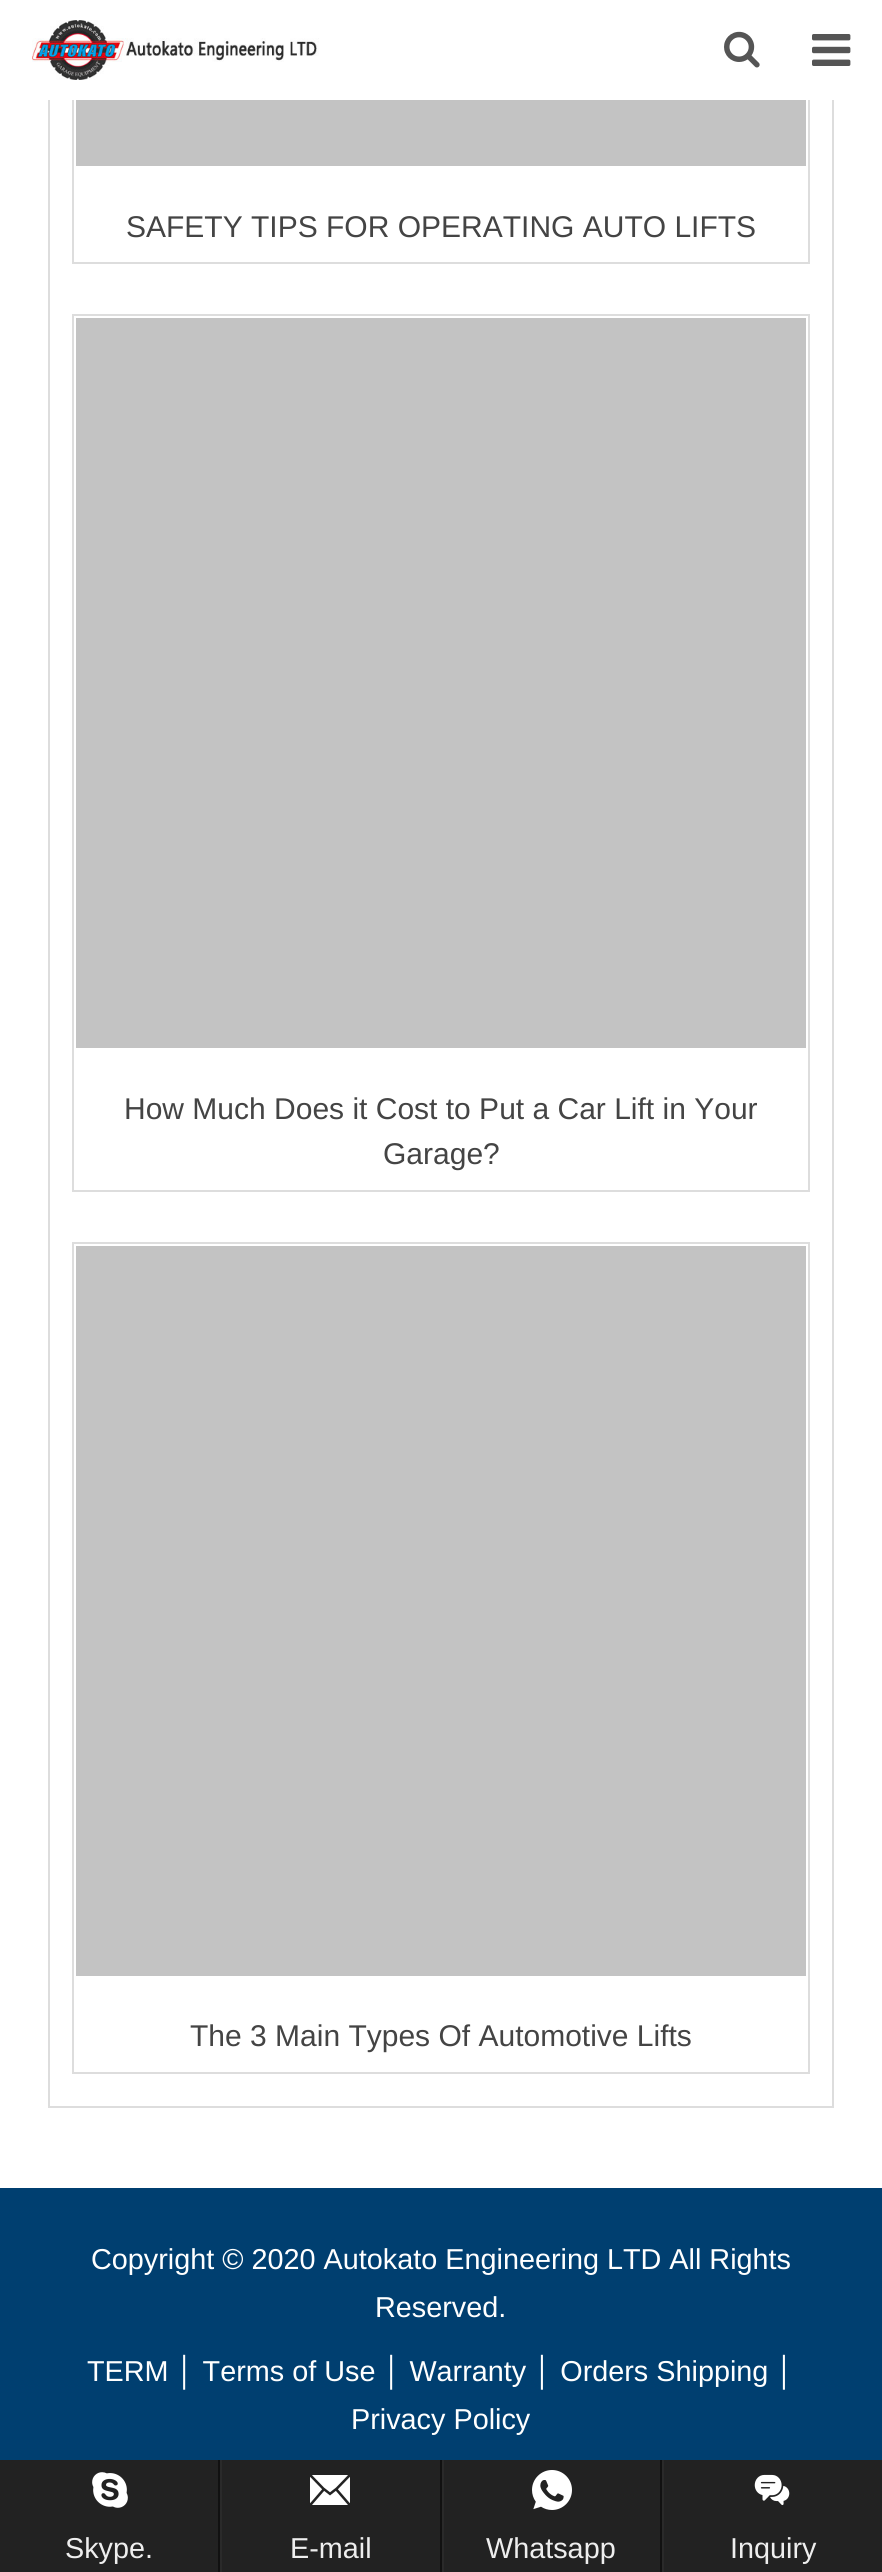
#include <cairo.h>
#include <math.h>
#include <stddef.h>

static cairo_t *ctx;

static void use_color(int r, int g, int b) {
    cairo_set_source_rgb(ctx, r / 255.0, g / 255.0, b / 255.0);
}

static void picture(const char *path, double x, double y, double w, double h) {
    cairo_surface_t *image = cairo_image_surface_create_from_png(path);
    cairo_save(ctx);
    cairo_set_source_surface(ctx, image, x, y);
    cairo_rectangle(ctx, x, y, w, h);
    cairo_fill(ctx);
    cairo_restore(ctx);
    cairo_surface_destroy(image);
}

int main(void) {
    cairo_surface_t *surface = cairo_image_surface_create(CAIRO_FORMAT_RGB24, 882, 2572);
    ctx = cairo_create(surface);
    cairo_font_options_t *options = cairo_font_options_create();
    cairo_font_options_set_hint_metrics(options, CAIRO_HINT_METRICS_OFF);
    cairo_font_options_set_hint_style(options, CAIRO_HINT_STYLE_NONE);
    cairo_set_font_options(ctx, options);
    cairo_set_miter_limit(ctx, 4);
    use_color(255, 255, 255);
    cairo_paint(ctx);
    cairo_rectangle(ctx, 49, -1, 784, 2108);
    use_color(221, 221, 221);
    cairo_stroke(ctx);
    cairo_rectangle(ctx, 73, -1, 736, 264);
    cairo_stroke(ctx);
    use_color(255, 255, 255);
    cairo_rectangle(ctx, 48, 0, 786, 100);
    cairo_fill(ctx);
    picture("img1.png", 32, 20, 287, 60);
    picture("img2.png", 724, 31, 36, 37);
    picture("img3.png", 812, 34, 39, 32);
    use_color(195, 195, 195);
    cairo_rectangle(ctx, 76, 100, 730, 66);
    cairo_fill(ctx);
    cairo_select_font_face(ctx, "Liberation Sans", CAIRO_FONT_SLANT_NORMAL, CAIRO_FONT_WEIGHT_NORMAL);
    cairo_set_font_size(ctx, 30);
    use_color(68, 68, 68);
    cairo_move_to(ctx, 126, 237);
    cairo_show_text(ctx, "SAFETY TIPS FOR OPERATING AUTO LIFTS");
    cairo_rectangle(ctx, 73, 315, 736, 876);
    use_color(221, 221, 221);
    cairo_stroke(ctx);
    use_color(195, 195, 195);
    cairo_rectangle(ctx, 76, 318, 730, 730);
    cairo_fill(ctx);
    use_color(68, 68, 68);
    cairo_move_to(ctx, 124, 1119);
    cairo_show_text(ctx, "How Much Does it Cost to Put a Car Lift in Your");
    cairo_move_to(ctx, 383, 1164);
    cairo_show_text(ctx, "Garage?");
    cairo_rectangle(ctx, 73, 1243, 736, 830);
    use_color(221, 221, 221);
    cairo_stroke(ctx);
    use_color(195, 195, 195);
    cairo_rectangle(ctx, 76, 1246, 730, 730);
    cairo_fill(ctx);
    use_color(68, 68, 68);
    cairo_move_to(ctx, 190, 2046);
    cairo_show_text(ctx, "The 3 Main Types Of Automotive Lifts");
    use_color(0, 63, 112);
    cairo_rectangle(ctx, 0, 2188, 882, 272);
    cairo_fill(ctx);
    cairo_set_font_size(ctx, 28.8);
    use_color(255, 255, 255);
    cairo_move_to(ctx, 91, 2269);
    cairo_show_text(ctx, "Copyright © 2020 Autokato Engineering LTD All Rights");
    cairo_move_to(ctx, 375, 2317);
    cairo_show_text(ctx, "Reserved.");
    cairo_move_to(ctx, 87, 2381);
    cairo_show_text(ctx, "TERM │ Terms of Use │ Warranty │ Orders Shipping │");
    cairo_move_to(ctx, 351, 2429);
    cairo_show_text(ctx, "Privacy Policy");
    use_color(34, 34, 34);
    cairo_rectangle(ctx, 0, 2460, 882, 112);
    cairo_fill(ctx);
    use_color(17, 17, 17);
    cairo_rectangle(ctx, 218, 2460, 2, 112);
    cairo_fill(ctx);
    picture("img4.png", 92, 2472, 36, 36);
    use_color(238, 238, 238);
    cairo_move_to(ctx, 65, 2558);
    cairo_show_text(ctx, "Skype.");
    use_color(17, 17, 17);
    cairo_rectangle(ctx, 440, 2460, 2, 112);
    cairo_fill(ctx);
    use_color(42, 42, 42);
    cairo_rectangle(ctx, 220, 2460, 2, 112);
    cairo_fill(ctx);
    picture("img5.png", 310, 2475, 40, 30);
    use_color(238, 238, 238);
    cairo_move_to(ctx, 290, 2558);
    cairo_show_text(ctx, "E-mail");
    use_color(17, 17, 17);
    cairo_rectangle(ctx, 660, 2460, 2, 112);
    cairo_fill(ctx);
    use_color(42, 42, 42);
    cairo_rectangle(ctx, 442, 2460, 2, 112);
    cairo_fill(ctx);
    picture("img6.png", 532, 2470, 40, 40);
    use_color(238, 238, 238);
    cairo_move_to(ctx, 486, 2558);
    cairo_show_text(ctx, "Whatsapp");
    use_color(42, 42, 42);
    cairo_rectangle(ctx, 662, 2460, 2, 112);
    cairo_fill(ctx);
    picture("img7.png", 754, 2474, 36, 32);
    use_color(238, 238, 238);
    cairo_move_to(ctx, 730, 2558);
    cairo_show_text(ctx, "Inquiry");
    cairo_surface_write_to_png(surface, "result.png");
    cairo_font_options_destroy(options);
    cairo_destroy(ctx);
    cairo_surface_destroy(surface);
    return 0;
}
